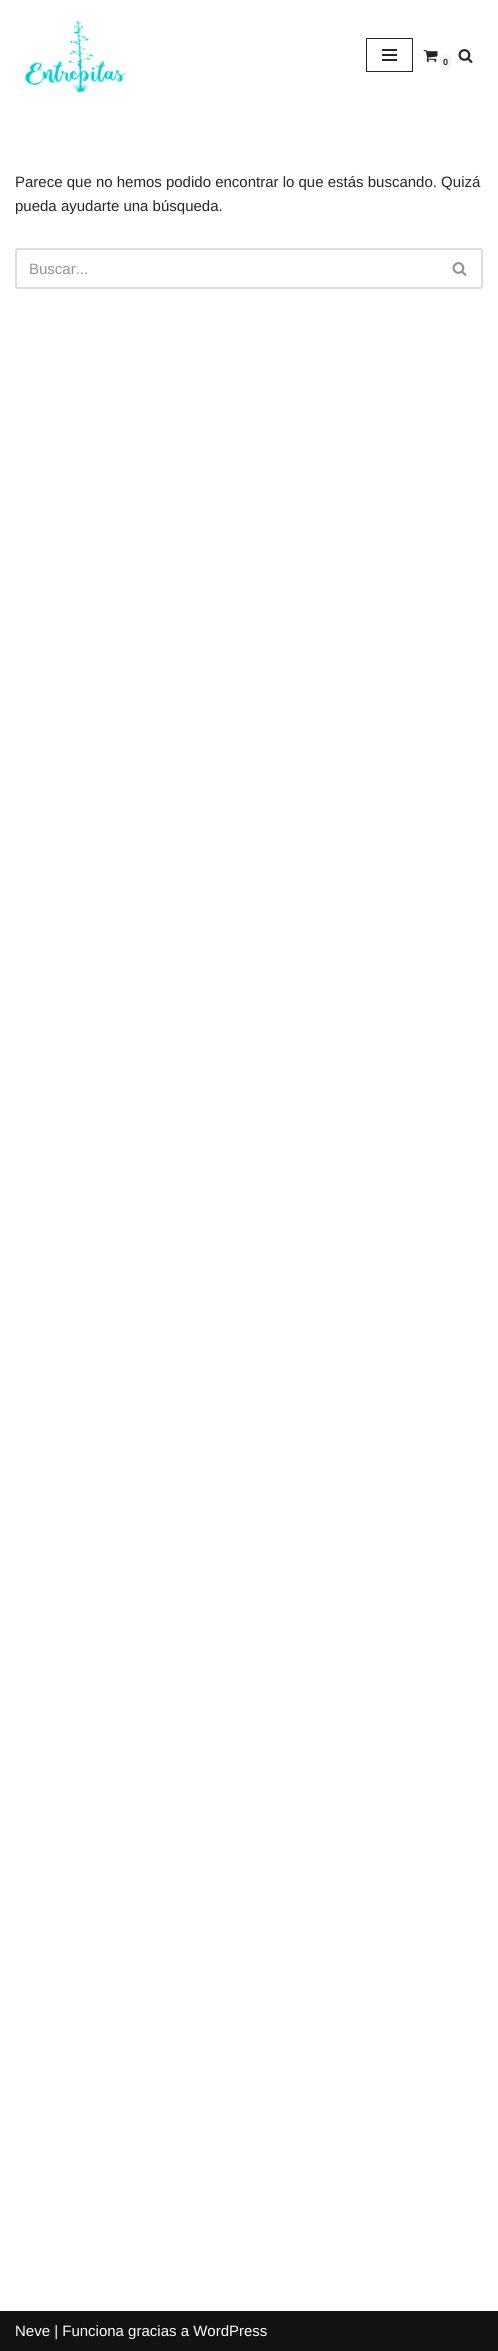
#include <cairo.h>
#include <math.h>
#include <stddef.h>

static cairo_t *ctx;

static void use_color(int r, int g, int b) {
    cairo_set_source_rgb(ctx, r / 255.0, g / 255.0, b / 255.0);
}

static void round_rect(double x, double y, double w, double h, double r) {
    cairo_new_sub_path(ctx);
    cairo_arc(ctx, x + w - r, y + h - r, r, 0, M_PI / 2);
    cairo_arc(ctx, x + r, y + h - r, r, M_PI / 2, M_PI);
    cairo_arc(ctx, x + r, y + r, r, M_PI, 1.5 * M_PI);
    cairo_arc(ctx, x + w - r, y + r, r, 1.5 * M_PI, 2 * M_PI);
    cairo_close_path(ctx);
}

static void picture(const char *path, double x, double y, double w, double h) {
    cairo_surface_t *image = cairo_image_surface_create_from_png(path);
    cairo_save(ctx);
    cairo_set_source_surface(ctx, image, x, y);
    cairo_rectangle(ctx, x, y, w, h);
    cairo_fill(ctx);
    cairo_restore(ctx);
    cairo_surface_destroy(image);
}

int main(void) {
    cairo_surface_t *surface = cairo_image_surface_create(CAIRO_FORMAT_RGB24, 498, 2351);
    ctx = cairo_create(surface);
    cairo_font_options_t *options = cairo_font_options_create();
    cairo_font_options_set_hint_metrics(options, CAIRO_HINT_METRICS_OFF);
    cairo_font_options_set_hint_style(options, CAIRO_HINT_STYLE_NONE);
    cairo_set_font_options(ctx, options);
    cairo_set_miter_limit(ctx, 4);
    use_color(255, 255, 255);
    cairo_paint(ctx);
    picture("img1.png", 24, 20, 102, 73);
    cairo_rectangle(ctx, 366.5, 38.5, 46, 33);
    use_color(39, 38, 38);
    cairo_set_line_width(ctx, 1);
    cairo_stroke(ctx);
    cairo_rectangle(ctx, 382, 49, 15, 2);
    cairo_fill(ctx);
    cairo_rectangle(ctx, 382, 54, 15, 2);
    cairo_fill(ctx);
    cairo_rectangle(ctx, 382, 59, 15, 2);
    cairo_fill(ctx);
    picture("img2.png", 423, 50, 15, 12);
    use_color(244, 245, 247);
    round_rect(440, 55, 11, 15, 3);
    cairo_fill(ctx);
    cairo_select_font_face(ctx, "Liberation Sans", CAIRO_FONT_SLANT_NORMAL, CAIRO_FONT_WEIGHT_BOLD);
    cairo_set_font_size(ctx, 9);
    use_color(39, 38, 38);
    cairo_move_to(ctx, 443, 65);
    cairo_show_text(ctx, "0");
    picture("img3.png", 458, 49, 15, 14);
    cairo_select_font_face(ctx, "Liberation Sans", CAIRO_FONT_SLANT_NORMAL, CAIRO_FONT_WEIGHT_NORMAL);
    cairo_set_font_size(ctx, 15);
    cairo_move_to(ctx, 15, 187);
    cairo_show_text(ctx, "Parece que no hemos podido encontrar lo que estás buscando. Quizá");
    cairo_move_to(ctx, 15, 211);
    cairo_show_text(ctx, "pueda ayudarte una búsqueda.");
    use_color(221, 221, 221);
    cairo_set_fill_rule(ctx, CAIRO_FILL_RULE_EVEN_ODD);
    cairo_new_path(ctx);
    cairo_move_to(ctx, 18, 248);
    cairo_line_to(ctx, 438, 248);
    cairo_line_to(ctx, 438, 289);
    cairo_line_to(ctx, 18, 289);
    cairo_curve_to(ctx, 16, 289, 15, 288, 15, 286);
    cairo_line_to(ctx, 15, 251);
    cairo_curve_to(ctx, 15, 249, 16, 248, 18, 248);
    cairo_close_path(ctx);
    cairo_move_to(ctx, 18, 250);
    cairo_line_to(ctx, 438, 250);
    cairo_line_to(ctx, 438, 287);
    cairo_line_to(ctx, 18, 287);
    cairo_line_to(ctx, 17, 286);
    cairo_line_to(ctx, 17, 251);
    cairo_close_path(ctx);
    cairo_fill(ctx);
    use_color(147, 147, 147);
    cairo_move_to(ctx, 29, 274);
    cairo_show_text(ctx, "Buscar...");
    use_color(221, 221, 221);
    cairo_new_path(ctx);
    cairo_move_to(ctx, 438, 248);
    cairo_line_to(ctx, 480, 248);
    cairo_curve_to(ctx, 482, 248, 483, 249, 483, 251);
    cairo_line_to(ctx, 483, 286);
    cairo_curve_to(ctx, 483, 288, 482, 289, 480, 289);
    cairo_line_to(ctx, 438, 289);
    cairo_close_path(ctx);
    cairo_move_to(ctx, 438, 250);
    cairo_line_to(ctx, 480, 250);
    cairo_curve_to(ctx, 481, 250, 481, 250, 481, 251);
    cairo_line_to(ctx, 481, 286);
    cairo_curve_to(ctx, 481, 287, 481, 287, 480, 287);
    cairo_line_to(ctx, 438, 287);
    cairo_close_path(ctx);
    cairo_fill(ctx);
    picture("img4.png", 452, 262, 15, 14);
    use_color(18, 18, 18);
    cairo_rectangle(ctx, 0, 2311, 498, 40);
    cairo_fill(ctx);
    use_color(255, 255, 255);
    cairo_move_to(ctx, 15, 2336);
    cairo_show_text(ctx, "Neve | Funciona gracias a WordPress");
    cairo_surface_write_to_png(surface, "result.png");
    cairo_font_options_destroy(options);
    cairo_destroy(ctx);
    cairo_surface_destroy(surface);
    return 0;
}
